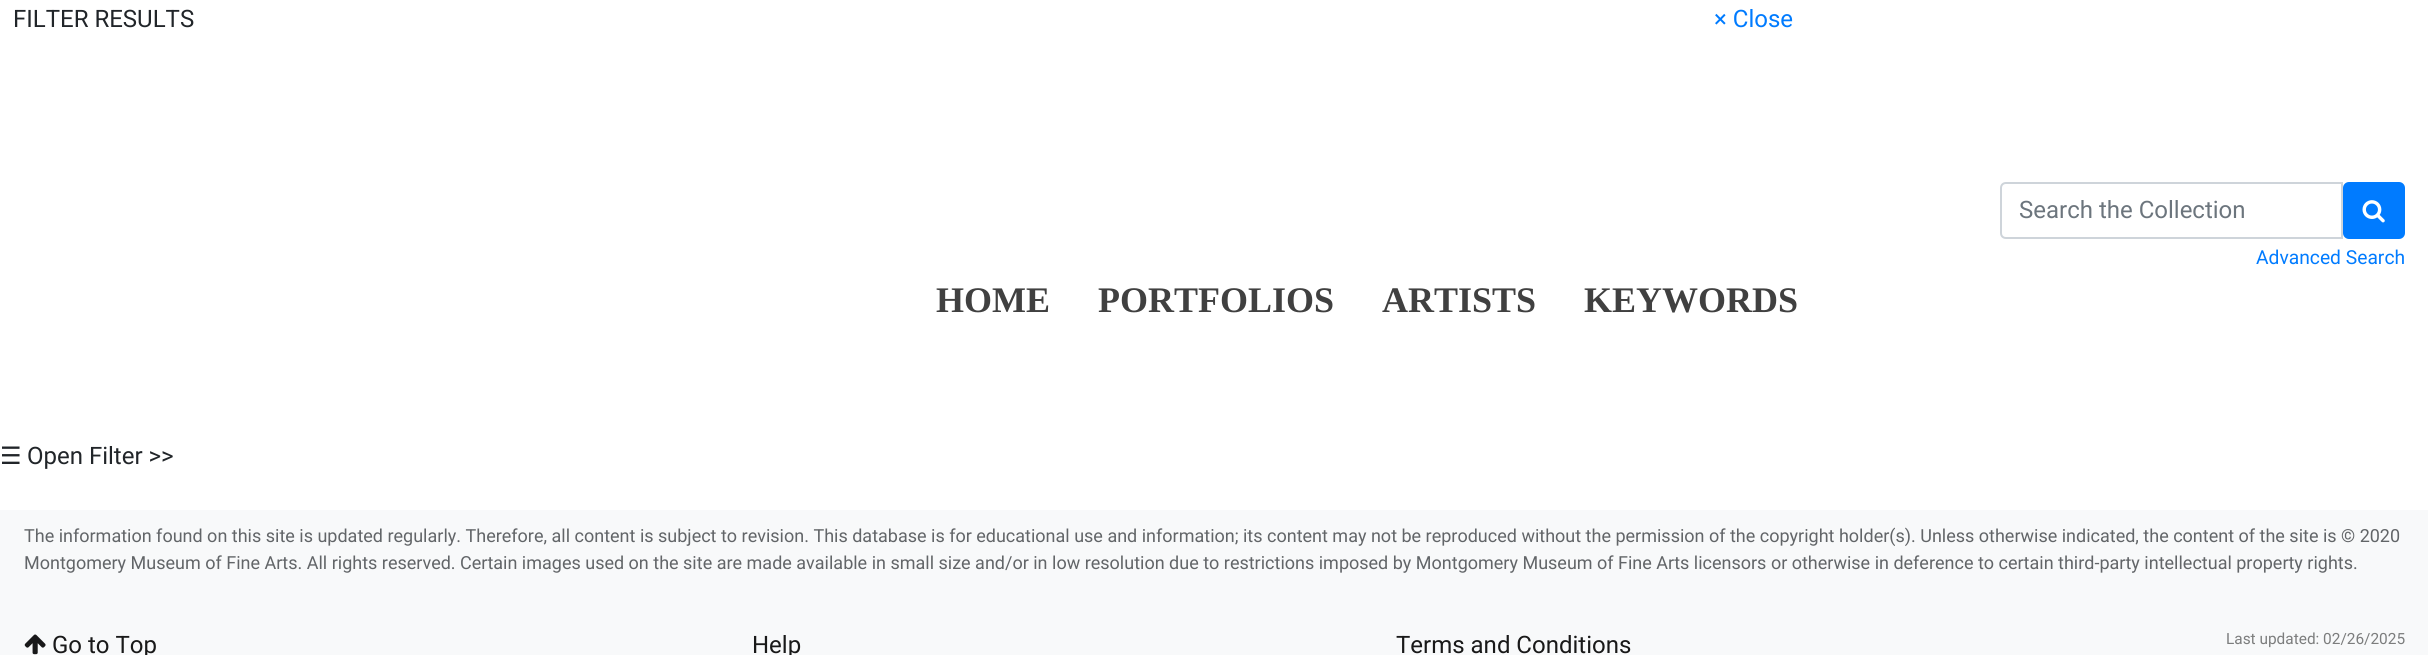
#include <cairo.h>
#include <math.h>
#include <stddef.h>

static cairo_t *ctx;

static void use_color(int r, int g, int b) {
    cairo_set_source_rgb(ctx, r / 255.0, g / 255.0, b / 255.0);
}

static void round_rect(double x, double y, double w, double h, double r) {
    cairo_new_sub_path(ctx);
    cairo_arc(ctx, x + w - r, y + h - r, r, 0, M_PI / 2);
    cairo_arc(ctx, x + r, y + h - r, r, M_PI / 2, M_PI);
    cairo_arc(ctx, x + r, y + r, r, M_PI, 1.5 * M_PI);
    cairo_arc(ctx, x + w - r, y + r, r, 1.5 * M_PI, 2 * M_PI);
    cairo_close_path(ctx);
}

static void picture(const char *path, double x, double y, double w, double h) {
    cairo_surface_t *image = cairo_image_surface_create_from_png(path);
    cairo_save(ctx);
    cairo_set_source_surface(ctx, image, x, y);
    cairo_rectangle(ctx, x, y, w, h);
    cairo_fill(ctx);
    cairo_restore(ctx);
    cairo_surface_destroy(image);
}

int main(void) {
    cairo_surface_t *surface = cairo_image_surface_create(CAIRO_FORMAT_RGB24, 2428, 655);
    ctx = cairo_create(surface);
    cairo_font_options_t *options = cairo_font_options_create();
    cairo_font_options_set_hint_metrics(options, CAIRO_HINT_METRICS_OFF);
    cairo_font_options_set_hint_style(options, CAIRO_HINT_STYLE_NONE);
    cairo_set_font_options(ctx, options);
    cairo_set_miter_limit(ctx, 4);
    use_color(255, 255, 255);
    cairo_paint(ctx);
    cairo_select_font_face(ctx, "Roboto", CAIRO_FONT_SLANT_NORMAL, CAIRO_FONT_WEIGHT_NORMAL);
    cairo_set_font_size(ctx, 24);
    use_color(33, 37, 41);
    cairo_move_to(ctx, 13, 27);
    cairo_show_text(ctx, "FILTER RESULTS");
    use_color(0, 123, 255);
    cairo_move_to(ctx, 1714, 27);
    cairo_show_text(ctx, "× Close");
    cairo_new_path(ctx);
    cairo_move_to(ctx, 2006, 183);
    cairo_line_to(ctx, 2342, 183);
    cairo_line_to(ctx, 2342, 238);
    cairo_line_to(ctx, 2006, 238);
    cairo_curve_to(ctx, 2003, 238, 2001, 236, 2001, 233);
    cairo_line_to(ctx, 2001, 188);
    cairo_curve_to(ctx, 2001, 185, 2003, 183, 2006, 183);
    cairo_close_path(ctx);
    use_color(206, 212, 218);
    cairo_stroke(ctx);
    use_color(108, 117, 125);
    cairo_move_to(ctx, 2019, 218);
    cairo_show_text(ctx, "Search the Collection");
    use_color(0, 123, 255);
    round_rect(2344, 183, 60, 55, 5);
    cairo_fill_preserve(ctx);
    cairo_stroke(ctx);
    picture("img1.png", 2362, 200, 23, 23);
    cairo_set_font_size(ctx, 19.25);
    cairo_move_to(ctx, 2256, 264);
    cairo_show_text(ctx, "Advanced Search");
    cairo_select_font_face(ctx, "Liberation Serif", CAIRO_FONT_SLANT_NORMAL, CAIRO_FONT_WEIGHT_BOLD);
    cairo_set_font_size(ctx, 36);
    use_color(64, 64, 64);
    cairo_move_to(ctx, 936, 312);
    cairo_show_text(ctx, "HOME");
    cairo_move_to(ctx, 1098, 312);
    cairo_show_text(ctx, "PORTFOLIOS");
    cairo_move_to(ctx, 1382, 312);
    cairo_show_text(ctx, "ARTISTS");
    cairo_move_to(ctx, 1584, 312);
    cairo_show_text(ctx, "KEYWORDS");
    cairo_select_font_face(ctx, "DejaVu Sans", CAIRO_FONT_SLANT_NORMAL, CAIRO_FONT_WEIGHT_NORMAL);
    cairo_set_font_size(ctx, 24);
    use_color(33, 37, 41);
    cairo_move_to(ctx, 0, 464);
    cairo_show_text(ctx, "☰");
    cairo_select_font_face(ctx, "Roboto", CAIRO_FONT_SLANT_NORMAL, CAIRO_FONT_WEIGHT_NORMAL);
    cairo_move_to(ctx, 27, 464);
    cairo_show_text(ctx, "Open Filter >>");
    use_color(248, 249, 250);
    cairo_rectangle(ctx, 0, 510, 2428, 145);
    cairo_fill(ctx);
    cairo_set_font_size(ctx, 18);
    use_color(98, 101, 104);
    cairo_move_to(ctx, 24, 542);
    cairo_show_text(ctx, "The information found on this site is updated regularly. Therefore, all content is subject to revision. This database is for educational use and information; its content may not be reproduced without the permission of the copyright holder(s). Unless otherwise indicated, the content of the site is © 2020");
    cairo_move_to(ctx, 24, 569);
    cairo_show_text(ctx, "Montgomery Museum of Fine Arts. All rights reserved. Certain images used on the site are made available in small size and/or in low resolution due to restrictions imposed by Montgomery Museum of Fine Arts licensors or otherwise in deference to certain third-party intellectual property rights.");
    picture("img2.png", 24, 634, 22, 21);
    cairo_set_font_size(ctx, 24);
    use_color(25, 25, 25);
    cairo_move_to(ctx, 52, 653);
    cairo_show_text(ctx, "Go to Top");
    cairo_move_to(ctx, 752, 653);
    cairo_show_text(ctx, "Help");
    cairo_move_to(ctx, 1396, 653);
    cairo_show_text(ctx, "Terms and Conditions");
    cairo_set_font_size(ctx, 15.4);
    use_color(124, 125, 125);
    cairo_move_to(ctx, 2226, 644);
    cairo_show_text(ctx, "Last updated: 02/26/2025");
    cairo_surface_write_to_png(surface, "result.png");
    cairo_font_options_destroy(options);
    cairo_destroy(ctx);
    cairo_surface_destroy(surface);
    return 0;
}
